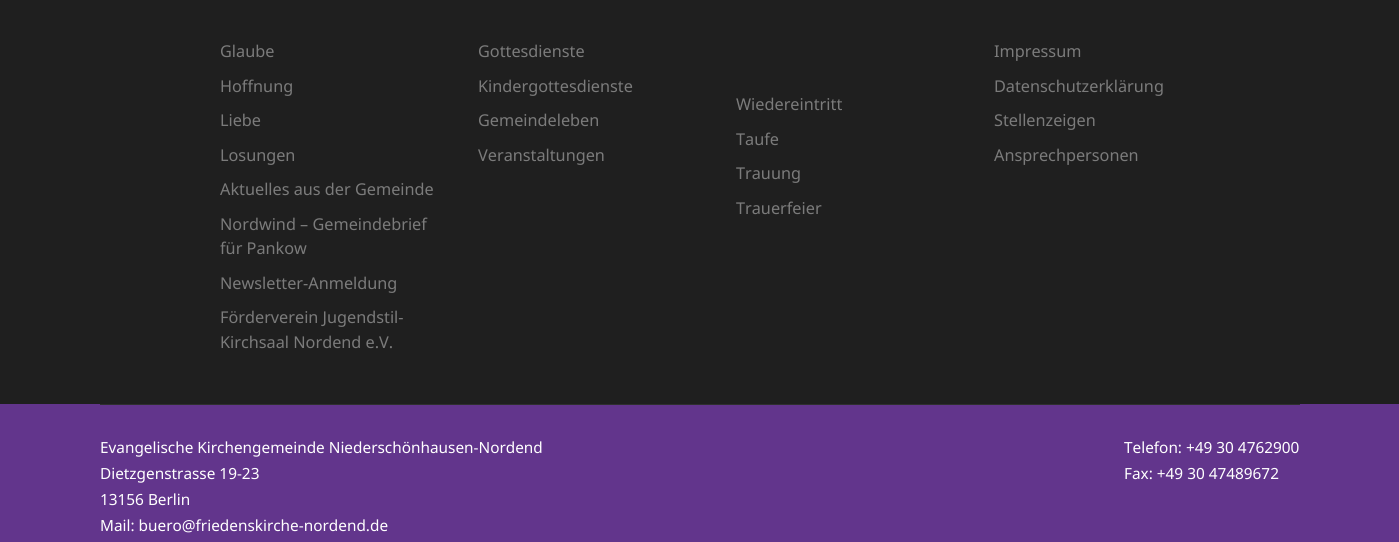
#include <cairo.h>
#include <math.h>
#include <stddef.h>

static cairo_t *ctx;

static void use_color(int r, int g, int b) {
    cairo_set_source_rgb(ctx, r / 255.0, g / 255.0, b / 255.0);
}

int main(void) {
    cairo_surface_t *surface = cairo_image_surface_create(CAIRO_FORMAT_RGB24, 1399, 542);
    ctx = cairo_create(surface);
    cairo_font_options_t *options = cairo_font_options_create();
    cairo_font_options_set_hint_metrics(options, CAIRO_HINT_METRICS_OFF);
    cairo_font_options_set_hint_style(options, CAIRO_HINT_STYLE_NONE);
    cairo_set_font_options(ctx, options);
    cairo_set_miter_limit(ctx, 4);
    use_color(31, 31, 31);
    cairo_paint(ctx);
    cairo_select_font_face(ctx, "Noto Sans", CAIRO_FONT_SLANT_NORMAL, CAIRO_FONT_WEIGHT_NORMAL);
    cairo_set_font_size(ctx, 16.25);
    use_color(123, 123, 123);
    cairo_move_to(ctx, 220, 57);
    cairo_show_text(ctx, "Glaube");
    cairo_move_to(ctx, 220, 92);
    cairo_show_text(ctx, "Hoffnung");
    cairo_move_to(ctx, 220, 126);
    cairo_show_text(ctx, "Liebe");
    cairo_move_to(ctx, 220, 161);
    cairo_show_text(ctx, "Losungen");
    cairo_move_to(ctx, 220, 195);
    cairo_show_text(ctx, "Aktuelles aus der Gemeinde");
    cairo_move_to(ctx, 220, 230);
    cairo_show_text(ctx, "Nordwind – Gemeindebrief");
    cairo_move_to(ctx, 220, 254);
    cairo_show_text(ctx, "für Pankow");
    cairo_move_to(ctx, 220, 289);
    cairo_show_text(ctx, "Newsletter-Anmeldung");
    cairo_move_to(ctx, 220, 323);
    cairo_show_text(ctx, "Förderverein Jugendstil-");
    cairo_move_to(ctx, 220, 348);
    cairo_show_text(ctx, "Kirchsaal Nordend e.V.");
    cairo_move_to(ctx, 478, 57);
    cairo_show_text(ctx, "Gottesdienste");
    cairo_move_to(ctx, 478, 92);
    cairo_show_text(ctx, "Kindergottesdienste");
    cairo_move_to(ctx, 478, 126);
    cairo_show_text(ctx, "Gemeindeleben");
    cairo_move_to(ctx, 478, 161);
    cairo_show_text(ctx, "Veranstaltungen");
    cairo_move_to(ctx, 736, 110);
    cairo_show_text(ctx, "Wiedereintritt");
    cairo_move_to(ctx, 736, 145);
    cairo_show_text(ctx, "Taufe");
    cairo_move_to(ctx, 736, 179);
    cairo_show_text(ctx, "Trauung");
    cairo_move_to(ctx, 736, 214);
    cairo_show_text(ctx, "Trauerfeier");
    cairo_move_to(ctx, 994, 57);
    cairo_show_text(ctx, "Impressum");
    cairo_move_to(ctx, 994, 92);
    cairo_show_text(ctx, "Datenschutzerklärung");
    cairo_move_to(ctx, 994, 126);
    cairo_show_text(ctx, "Stellenzeigen");
    cairo_move_to(ctx, 994, 161);
    cairo_show_text(ctx, "Ansprechpersonen");
    use_color(98, 53, 140);
    cairo_rectangle(ctx, 0, 404, 1399, 138);
    cairo_fill(ctx);
    use_color(47, 47, 47);
    cairo_rectangle(ctx, 100, 404, 1200, 1);
    cairo_fill(ctx);
    cairo_set_font_size(ctx, 15.35);
    use_color(255, 255, 255);
    cairo_move_to(ctx, 100, 453);
    cairo_show_text(ctx, "Evangelische Kirchengemeinde Niederschönhausen-Nordend");
    cairo_move_to(ctx, 100, 479);
    cairo_show_text(ctx, "Dietzgenstrasse 19-23");
    cairo_move_to(ctx, 100, 505);
    cairo_show_text(ctx, "13156 Berlin");
    cairo_move_to(ctx, 100, 531);
    cairo_show_text(ctx, "Mail: buero@friedenskirche-nordend.de");
    cairo_move_to(ctx, 1124, 453);
    cairo_show_text(ctx, "Telefon: +49 30 4762900");
    cairo_move_to(ctx, 1124, 479);
    cairo_show_text(ctx, "Fax: +49 30 47489672");
    cairo_surface_write_to_png(surface, "result.png");
    cairo_font_options_destroy(options);
    cairo_destroy(ctx);
    cairo_surface_destroy(surface);
    return 0;
}
